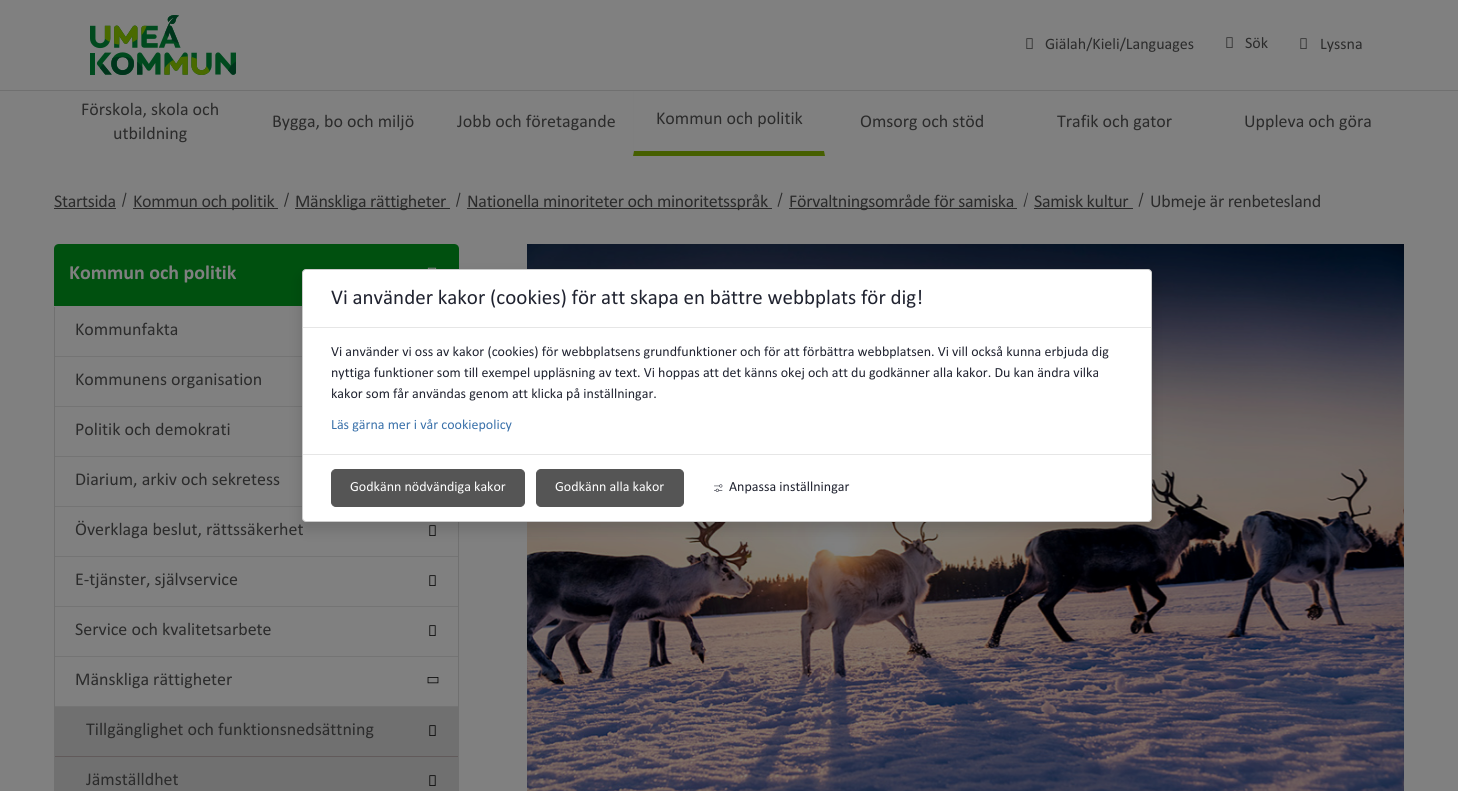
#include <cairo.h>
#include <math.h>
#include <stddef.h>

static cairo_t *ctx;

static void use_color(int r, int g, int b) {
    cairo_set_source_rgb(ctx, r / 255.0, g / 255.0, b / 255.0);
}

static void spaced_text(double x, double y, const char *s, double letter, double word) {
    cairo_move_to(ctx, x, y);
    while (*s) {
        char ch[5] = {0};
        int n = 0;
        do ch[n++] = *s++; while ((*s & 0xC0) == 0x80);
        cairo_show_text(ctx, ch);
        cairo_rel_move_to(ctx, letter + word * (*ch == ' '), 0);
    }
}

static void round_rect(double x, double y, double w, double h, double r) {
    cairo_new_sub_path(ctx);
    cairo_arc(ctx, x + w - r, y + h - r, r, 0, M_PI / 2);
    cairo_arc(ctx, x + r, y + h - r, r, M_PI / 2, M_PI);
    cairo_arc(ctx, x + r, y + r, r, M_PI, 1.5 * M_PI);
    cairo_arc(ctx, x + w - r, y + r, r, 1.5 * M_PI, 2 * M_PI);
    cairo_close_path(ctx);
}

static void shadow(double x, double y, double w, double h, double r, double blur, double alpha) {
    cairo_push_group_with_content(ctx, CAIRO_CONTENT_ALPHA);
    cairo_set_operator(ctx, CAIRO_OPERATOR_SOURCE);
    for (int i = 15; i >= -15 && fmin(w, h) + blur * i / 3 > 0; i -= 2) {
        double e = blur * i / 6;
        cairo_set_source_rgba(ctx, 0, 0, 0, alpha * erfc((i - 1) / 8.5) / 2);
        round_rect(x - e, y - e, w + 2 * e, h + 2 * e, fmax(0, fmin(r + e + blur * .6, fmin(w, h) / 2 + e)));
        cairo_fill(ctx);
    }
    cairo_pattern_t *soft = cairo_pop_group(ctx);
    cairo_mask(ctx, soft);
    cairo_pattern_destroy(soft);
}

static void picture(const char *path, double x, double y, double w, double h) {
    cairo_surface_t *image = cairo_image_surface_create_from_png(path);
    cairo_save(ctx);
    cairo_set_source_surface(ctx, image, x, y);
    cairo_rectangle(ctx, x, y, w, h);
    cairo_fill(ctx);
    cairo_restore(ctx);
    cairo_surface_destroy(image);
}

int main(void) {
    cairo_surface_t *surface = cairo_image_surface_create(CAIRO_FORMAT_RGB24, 1458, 791);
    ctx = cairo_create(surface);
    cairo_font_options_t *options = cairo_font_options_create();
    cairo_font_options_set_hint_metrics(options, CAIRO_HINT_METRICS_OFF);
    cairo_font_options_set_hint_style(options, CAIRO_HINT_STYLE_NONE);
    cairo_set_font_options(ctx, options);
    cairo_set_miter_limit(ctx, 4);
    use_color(128, 128, 128);
    cairo_paint(ctx);
    use_color(112, 112, 112);
    cairo_rectangle(ctx, 0, 90, 1458, 1);
    cairo_fill(ctx);
    picture("img1.png", 90, 15, 146, 60);
    picture("img2.png", 1026, 38, 7, 11);
    cairo_select_font_face(ctx, "Calibri", CAIRO_FONT_SLANT_NORMAL, CAIRO_FONT_WEIGHT_NORMAL);
    cairo_set_font_size(ctx, 16);
    use_color(43, 43, 43);
    cairo_move_to(ctx, 1045, 49);
    cairo_show_text(ctx, "Giälah/Kieli/Languages");
    picture("img2.png", 1226, 37, 7, 11);
    cairo_move_to(ctx, 1245, 48);
    cairo_show_text(ctx, "Sök");
    picture("img2.png", 1300, 38, 7, 11);
    cairo_move_to(ctx, 1320, 49);
    cairo_show_text(ctx, "Lyssna");
    cairo_set_font_size(ctx, 18);
    cairo_move_to(ctx, 81, 115);
    cairo_show_text(ctx, "Förskola, skola och");
    cairo_move_to(ctx, 113, 139);
    cairo_show_text(ctx, "utbildning");
    cairo_move_to(ctx, 272, 127);
    cairo_show_text(ctx, "Bygga, bo och miljö");
    cairo_move_to(ctx, 457, 127);
    cairo_show_text(ctx, "Jobb och företagande");
    use_color(70, 95, 0);
    cairo_new_path(ctx);
    cairo_move_to(ctx, 825, 156);
    cairo_line_to(ctx, 633, 156);
    cairo_line_to(ctx, 634, 151);
    cairo_line_to(ctx, 824, 151);
    cairo_close_path(ctx);
    cairo_fill(ctx);
    cairo_set_source_rgba(ctx, 0.502, 0.502, 0.502, 0.2);
    cairo_new_path(ctx);
    cairo_move_to(ctx, 633, 156);
    cairo_line_to(ctx, 633, 91);
    cairo_line_to(ctx, 634, 91);
    cairo_line_to(ctx, 634, 151);
    cairo_close_path(ctx);
    cairo_fill(ctx);
    use_color(43, 43, 43);
    cairo_move_to(ctx, 656, 124);
    cairo_show_text(ctx, "Kommun och politik");
    cairo_move_to(ctx, 860, 127);
    cairo_show_text(ctx, "Omsorg och stöd");
    cairo_move_to(ctx, 1057, 127);
    cairo_show_text(ctx, "Trafik och gator");
    cairo_move_to(ctx, 1244, 127);
    cairo_show_text(ctx, "Uppleva och göra");
    spaced_text(54, 207, "Startsida", -0.3, 0);
    cairo_rectangle(ctx, 54, 208, 62, 1);
    cairo_fill(ctx);
    cairo_new_path(ctx);
    cairo_move_to(ctx, 125.5, 192.5);
    cairo_line_to(ctx, 126.5, 193);
    cairo_line_to(ctx, 123, 207);
    cairo_line_to(ctx, 122, 206.5);
    cairo_close_path(ctx);
    cairo_fill(ctx);
    cairo_rectangle(ctx, 133, 208, 145, 1);
    cairo_fill(ctx);
    spaced_text(133, 207, "Kommun och politik", -0.3, 0);
    cairo_new_path(ctx);
    cairo_move_to(ctx, 288, 192.5);
    cairo_line_to(ctx, 289, 193);
    cairo_line_to(ctx, 285, 207);
    cairo_line_to(ctx, 284, 206.5);
    cairo_close_path(ctx);
    cairo_fill(ctx);
    cairo_rectangle(ctx, 295, 208, 155, 1);
    cairo_fill(ctx);
    spaced_text(295, 207, "Mänskliga rättigheter", -0.3, 0);
    cairo_new_path(ctx);
    cairo_move_to(ctx, 459.5, 192.5);
    cairo_line_to(ctx, 460.5, 193);
    cairo_line_to(ctx, 457, 207);
    cairo_line_to(ctx, 456, 206.5);
    cairo_close_path(ctx);
    cairo_fill(ctx);
    cairo_rectangle(ctx, 467, 208, 305, 1);
    cairo_fill(ctx);
    spaced_text(467, 207, "Nationella minoriteter och minoritetsspråk", -0.3, 0);
    cairo_new_path(ctx);
    cairo_move_to(ctx, 781.5, 192.5);
    cairo_line_to(ctx, 782.5, 193);
    cairo_line_to(ctx, 778.5, 207);
    cairo_line_to(ctx, 777.5, 206.5);
    cairo_close_path(ctx);
    cairo_fill(ctx);
    cairo_rectangle(ctx, 789, 208, 228, 1);
    cairo_fill(ctx);
    spaced_text(789, 207, "Förvaltningsområde för samiska", -0.3, 0);
    cairo_new_path(ctx);
    cairo_move_to(ctx, 1027.5, 192.5);
    cairo_line_to(ctx, 1028, 193);
    cairo_line_to(ctx, 1024.5, 207);
    cairo_line_to(ctx, 1023.5, 206.5);
    cairo_close_path(ctx);
    cairo_fill(ctx);
    spaced_text(1034, 207, "Samisk kultur", -0.3, 0);
    cairo_rectangle(ctx, 1034, 208, 99, 1);
    cairo_fill(ctx);
    cairo_new_path(ctx);
    cairo_move_to(ctx, 1142.5, 192.5);
    cairo_line_to(ctx, 1143.5, 193);
    cairo_line_to(ctx, 1139.5, 207);
    cairo_line_to(ctx, 1138.5, 206.5);
    cairo_close_path(ctx);
    cairo_fill(ctx);
    spaced_text(1150, 207, "Ubmeje är renbetesland", -0.3, 0);
    use_color(0, 80, 15);
    cairo_new_path(ctx);
    cairo_move_to(ctx, 59, 244);
    cairo_line_to(ctx, 454, 244);
    cairo_curve_to(ctx, 457, 244, 459, 246, 459, 249);
    cairo_line_to(ctx, 459, 306);
    cairo_line_to(ctx, 54, 306);
    cairo_line_to(ctx, 54, 249);
    cairo_curve_to(ctx, 54, 246, 56, 244, 59, 244);
    cairo_close_path(ctx);
    cairo_fill(ctx);
    cairo_select_font_face(ctx, "Calibri", CAIRO_FONT_SLANT_NORMAL, CAIRO_FONT_WEIGHT_BOLD);
    cairo_set_font_size(ctx, 20);
    use_color(128, 128, 128);
    cairo_move_to(ctx, 69, 279);
    cairo_show_text(ctx, "Kommun och politik");
    picture("img3.png", 427, 267, 10, 2);
    use_color(112, 112, 112);
    cairo_set_fill_rule(ctx, CAIRO_FILL_RULE_EVEN_ODD);
    cairo_new_path(ctx);
    cairo_move_to(ctx, 54, 307);
    cairo_line_to(ctx, 459, 307);
    cairo_line_to(ctx, 459, 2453);
    cairo_curve_to(ctx, 459, 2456, 457, 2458, 454, 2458);
    cairo_line_to(ctx, 59, 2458);
    cairo_curve_to(ctx, 56, 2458, 54, 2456, 54, 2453);
    cairo_close_path(ctx);
    cairo_move_to(ctx, 55, 307);
    cairo_line_to(ctx, 458, 307);
    cairo_line_to(ctx, 458, 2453);
    cairo_curve_to(ctx, 458, 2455, 456, 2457, 454, 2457);
    cairo_line_to(ctx, 59, 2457);
    cairo_curve_to(ctx, 57, 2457, 55, 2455, 55, 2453);
    cairo_close_path(ctx);
    cairo_fill(ctx);
    use_color(116, 116, 116);
    cairo_rectangle(ctx, 55, 356, 247, 1);
    cairo_fill(ctx);
    cairo_select_font_face(ctx, "Calibri", CAIRO_FONT_SLANT_NORMAL, CAIRO_FONT_WEIGHT_NORMAL);
    cairo_set_font_size(ctx, 18);
    use_color(43, 43, 43);
    cairo_move_to(ctx, 75, 335);
    cairo_show_text(ctx, "Kommunfakta");
    use_color(116, 116, 116);
    cairo_rectangle(ctx, 55, 406, 247, 1);
    cairo_fill(ctx);
    use_color(43, 43, 43);
    cairo_move_to(ctx, 75, 385);
    cairo_show_text(ctx, "Kommunens organisation");
    use_color(116, 116, 116);
    cairo_rectangle(ctx, 55, 456, 247, 1);
    cairo_fill(ctx);
    use_color(43, 43, 43);
    cairo_move_to(ctx, 75, 435);
    cairo_show_text(ctx, "Politik och demokrati");
    use_color(116, 116, 116);
    cairo_rectangle(ctx, 55, 506, 247, 1);
    cairo_fill(ctx);
    use_color(43, 43, 43);
    cairo_move_to(ctx, 75, 485);
    cairo_show_text(ctx, "Diarium, arkiv och sekretess");
    use_color(116, 116, 116);
    cairo_rectangle(ctx, 55, 556, 403, 1);
    cairo_fill(ctx);
    use_color(43, 43, 43);
    cairo_move_to(ctx, 75, 535);
    cairo_show_text(ctx, "Överklaga beslut, rättssäkerhet");
    picture("img4.png", 429, 525, 7, 11);
    use_color(116, 116, 116);
    cairo_rectangle(ctx, 55, 606, 403, 1);
    cairo_fill(ctx);
    use_color(43, 43, 43);
    cairo_move_to(ctx, 75, 585);
    cairo_show_text(ctx, "E-tjänster, självservice");
    picture("img4.png", 429, 575, 7, 11);
    use_color(116, 116, 116);
    cairo_rectangle(ctx, 55, 656, 403, 1);
    cairo_fill(ctx);
    use_color(43, 43, 43);
    cairo_move_to(ctx, 75, 635);
    cairo_show_text(ctx, "Service och kvalitetsarbete");
    picture("img4.png", 429, 625, 7, 11);
    use_color(116, 116, 116);
    cairo_rectangle(ctx, 55, 706, 403, 1);
    cairo_fill(ctx);
    use_color(43, 43, 43);
    cairo_move_to(ctx, 75, 685);
    cairo_show_text(ctx, "Mänskliga rättigheter");
    picture("img5.png", 427, 677, 12, 7);
    use_color(112, 112, 112);
    cairo_rectangle(ctx, 55, 707, 403, 49);
    cairo_fill(ctx);
    use_color(97, 90, 90);
    cairo_rectangle(ctx, 55, 756, 403, 1);
    cairo_fill(ctx);
    use_color(43, 43, 43);
    cairo_move_to(ctx, 86, 735);
    cairo_show_text(ctx, "Tillgänglighet och funktionsnedsättning");
    picture("img6.png", 429, 725, 7, 11);
    use_color(112, 112, 112);
    cairo_rectangle(ctx, 55, 757, 403, 34);
    cairo_fill(ctx);
    use_color(43, 43, 43);
    cairo_move_to(ctx, 86, 785);
    cairo_show_text(ctx, "Jämställdhet");
    picture("img6.png", 429, 775, 7, 11);
    picture("img7.png", 527, 244, 877, 547);
    use_color(0, 0, 0);
    shadow(302, 276, 850, 253, 4, 7, 0.15);
    use_color(255, 255, 255);
    round_rect(302.5, 269.5, 849, 252, 3.5);
    cairo_fill_preserve(ctx);
    use_color(204, 204, 204);
    cairo_set_line_width(ctx, 1);
    cairo_stroke(ctx);
    use_color(255, 255, 255);
    cairo_new_path(ctx);
    cairo_move_to(ctx, 307, 270);
    cairo_line_to(ctx, 1147, 270);
    cairo_curve_to(ctx, 1149, 270, 1151, 272, 1151, 274);
    cairo_line_to(ctx, 1151, 328);
    cairo_line_to(ctx, 303, 328);
    cairo_line_to(ctx, 303, 274);
    cairo_curve_to(ctx, 303, 272, 305, 270, 307, 270);
    cairo_close_path(ctx);
    cairo_fill(ctx);
    use_color(230, 230, 230);
    cairo_rectangle(ctx, 303, 327, 848, 1);
    cairo_fill(ctx);
    cairo_set_font_size(ctx, 21);
    use_color(32, 35, 48);
    cairo_move_to(ctx, 331, 304);
    cairo_show_text(ctx, "Vi använder kakor (cookies) för att skapa en bättre webbplats för dig!");
    cairo_set_font_size(ctx, 14);
    cairo_move_to(ctx, 331, 356);
    cairo_show_text(ctx, "Vi använder vi oss av kakor (cookies) för webbplatsens grundfunktioner och för att förbättra webbplatsen. Vi vill också kunna erbjuda dig");
    cairo_move_to(ctx, 331, 377);
    cairo_show_text(ctx, "nyttiga funktioner som till exempel uppläsning av text. Vi hoppas att det känns okej och att du godkänner alla kakor. Du kan ändra vilka");
    cairo_move_to(ctx, 331, 398);
    cairo_show_text(ctx, "kakor som får användas genom att klicka på inställningar.");
    use_color(58, 113, 170);
    cairo_move_to(ctx, 331, 429);
    cairo_show_text(ctx, "Läs gärna mer i vår cookiepolicy");
    use_color(230, 230, 230);
    cairo_rectangle(ctx, 303, 454, 848, 1);
    cairo_fill(ctx);
    use_color(85, 85, 85);
    round_rect(331.5, 469.5, 193, 37, 4.5);
    cairo_fill_preserve(ctx);
    cairo_stroke(ctx);
    use_color(255, 255, 255);
    cairo_move_to(ctx, 350, 491);
    cairo_show_text(ctx, "Godkänn nödvändiga kakor");
    use_color(85, 85, 85);
    round_rect(536.5, 469.5, 147, 37, 4.5);
    cairo_fill_preserve(ctx);
    cairo_stroke(ctx);
    use_color(255, 255, 255);
    cairo_move_to(ctx, 555, 491);
    cairo_show_text(ctx, "Godkänn alla kakor");
    picture("img8.png", 714, 484, 9, 8);
    use_color(32, 35, 48);
    cairo_move_to(ctx, 729, 491);
    cairo_show_text(ctx, "Anpassa inställningar");
    cairo_surface_write_to_png(surface, "result.png");
    cairo_font_options_destroy(options);
    cairo_destroy(ctx);
    cairo_surface_destroy(surface);
    return 0;
}
